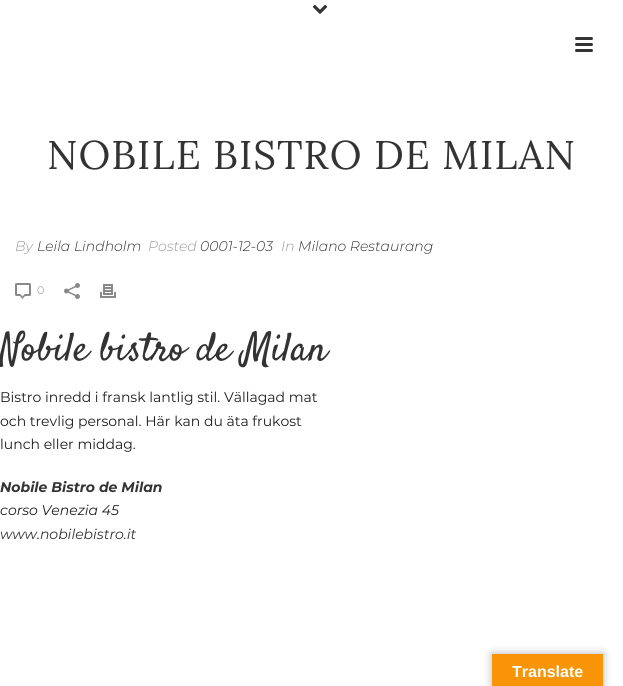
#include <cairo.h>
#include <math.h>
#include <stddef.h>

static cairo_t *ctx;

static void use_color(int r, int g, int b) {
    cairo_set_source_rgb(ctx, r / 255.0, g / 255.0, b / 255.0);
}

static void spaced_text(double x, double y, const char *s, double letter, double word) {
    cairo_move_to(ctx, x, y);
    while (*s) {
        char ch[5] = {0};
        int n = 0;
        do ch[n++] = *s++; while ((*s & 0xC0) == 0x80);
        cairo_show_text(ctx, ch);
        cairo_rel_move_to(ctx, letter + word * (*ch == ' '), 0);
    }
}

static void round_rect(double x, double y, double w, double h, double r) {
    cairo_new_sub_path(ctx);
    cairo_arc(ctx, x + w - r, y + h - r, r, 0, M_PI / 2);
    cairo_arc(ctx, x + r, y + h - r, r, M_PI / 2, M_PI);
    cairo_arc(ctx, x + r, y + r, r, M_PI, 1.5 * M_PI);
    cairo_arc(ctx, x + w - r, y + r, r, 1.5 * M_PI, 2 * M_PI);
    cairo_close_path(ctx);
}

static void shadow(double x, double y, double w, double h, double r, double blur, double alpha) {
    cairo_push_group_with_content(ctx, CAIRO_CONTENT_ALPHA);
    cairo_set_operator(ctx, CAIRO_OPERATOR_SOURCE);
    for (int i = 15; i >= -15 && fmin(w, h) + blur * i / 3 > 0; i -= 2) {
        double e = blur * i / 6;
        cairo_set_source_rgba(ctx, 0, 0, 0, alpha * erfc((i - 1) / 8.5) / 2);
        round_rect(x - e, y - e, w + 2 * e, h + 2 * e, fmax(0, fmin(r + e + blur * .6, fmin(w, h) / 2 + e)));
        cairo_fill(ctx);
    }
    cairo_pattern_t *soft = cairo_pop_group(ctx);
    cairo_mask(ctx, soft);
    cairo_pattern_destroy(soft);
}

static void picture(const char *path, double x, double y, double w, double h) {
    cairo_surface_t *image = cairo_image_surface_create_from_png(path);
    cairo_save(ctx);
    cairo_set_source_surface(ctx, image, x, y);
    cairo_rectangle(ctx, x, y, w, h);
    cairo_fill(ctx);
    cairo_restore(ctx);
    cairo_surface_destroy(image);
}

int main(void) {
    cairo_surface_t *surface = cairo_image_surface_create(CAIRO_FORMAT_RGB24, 623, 686);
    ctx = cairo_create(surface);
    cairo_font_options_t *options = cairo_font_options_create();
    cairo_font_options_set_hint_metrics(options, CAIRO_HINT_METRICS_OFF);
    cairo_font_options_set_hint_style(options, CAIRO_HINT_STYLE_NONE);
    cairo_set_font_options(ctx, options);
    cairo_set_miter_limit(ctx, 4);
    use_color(255, 255, 255);
    cairo_paint(ctx);
    picture("img1.png", 312, 4, 16, 10);
    use_color(51, 51, 51);
    round_rect(575, 37, 18, 3, 1.5);
    cairo_fill(ctx);
    round_rect(575, 43, 18, 3, 1.5);
    cairo_fill(ctx);
    round_rect(575, 49, 18, 3, 1.5);
    cairo_fill(ctx);
    cairo_select_font_face(ctx, "Lora", CAIRO_FONT_SLANT_NORMAL, CAIRO_FONT_WEIGHT_NORMAL);
    cairo_set_font_size(ctx, 40);
    spaced_text(47, 169, "NOBILE BISTRO DE MILAN", 1, 0);
    cairo_select_font_face(ctx, "Montserrat Light", CAIRO_FONT_SLANT_ITALIC, CAIRO_FONT_WEIGHT_NORMAL);
    cairo_set_font_size(ctx, 14);
    use_color(153, 153, 153);
    cairo_move_to(ctx, 15, 251);
    cairo_show_text(ctx, "By");
    use_color(51, 51, 51);
    cairo_move_to(ctx, 37, 251);
    cairo_show_text(ctx, "Leila Lindholm");
    use_color(153, 153, 153);
    cairo_move_to(ctx, 148, 251);
    cairo_show_text(ctx, "Posted");
    use_color(51, 51, 51);
    cairo_move_to(ctx, 200, 251);
    cairo_show_text(ctx, "0001-12-03");
    use_color(153, 153, 153);
    cairo_move_to(ctx, 281, 251);
    cairo_show_text(ctx, "In");
    use_color(51, 51, 51);
    cairo_move_to(ctx, 298, 251);
    cairo_show_text(ctx, "Milano Restaurang");
    picture("img2.png", 15, 283, 16, 16);
    cairo_select_font_face(ctx, "Montserrat Light", CAIRO_FONT_SLANT_NORMAL, CAIRO_FONT_WEIGHT_NORMAL);
    cairo_set_font_size(ctx, 11);
    use_color(137, 137, 137);
    cairo_move_to(ctx, 37, 294);
    cairo_show_text(ctx, "0");
    picture("img3.png", 64, 283, 16, 16);
    picture("img4.png", 100, 284, 16, 14);
    cairo_select_font_face(ctx, "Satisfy", CAIRO_FONT_SLANT_NORMAL, CAIRO_FONT_WEIGHT_NORMAL);
    cairo_set_font_size(ctx, 40);
    use_color(51, 51, 51);
    cairo_move_to(ctx, 0, 360);
    cairo_show_text(ctx, "Nobile bistro de Milan");
    cairo_select_font_face(ctx, "Montserrat", CAIRO_FONT_SLANT_NORMAL, CAIRO_FONT_WEIGHT_NORMAL);
    cairo_set_font_size(ctx, 14);
    use_color(30, 30, 30);
    cairo_move_to(ctx, 0, 402);
    cairo_show_text(ctx, "Bistro inredd i fransk lantlig stil. Vällagad mat");
    cairo_move_to(ctx, 0, 426);
    cairo_show_text(ctx, "och trevlig personal. Här kan du äta frukost");
    cairo_move_to(ctx, 0, 449);
    cairo_show_text(ctx, "lunch eller middag.");
    cairo_select_font_face(ctx, "Montserrat", CAIRO_FONT_SLANT_ITALIC, CAIRO_FONT_WEIGHT_BOLD);
    use_color(51, 51, 51);
    cairo_move_to(ctx, 0, 492);
    cairo_show_text(ctx, "Nobile Bistro de Milan");
    cairo_select_font_face(ctx, "Montserrat", CAIRO_FONT_SLANT_ITALIC, CAIRO_FONT_WEIGHT_NORMAL);
    use_color(30, 30, 30);
    cairo_move_to(ctx, 0, 515);
    cairo_show_text(ctx, "corso Venezia 45");
    use_color(51, 51, 51);
    cairo_move_to(ctx, 0, 539);
    cairo_show_text(ctx, "www.nobilebistro.it");
    use_color(0, 0, 0);
    shadow(492, 654, 111, 32, 0, 4.5, 0.3);
    use_color(248, 148, 6);
    cairo_rectangle(ctx, 492, 654, 111, 32);
    cairo_fill(ctx);
    cairo_select_font_face(ctx, "Liberation Sans", CAIRO_FONT_SLANT_NORMAL, CAIRO_FONT_WEIGHT_BOLD);
    cairo_set_font_size(ctx, 16);
    use_color(255, 255, 255);
    cairo_move_to(ctx, 512, 677);
    cairo_show_text(ctx, "Translate");
    cairo_surface_write_to_png(surface, "result.png");
    cairo_font_options_destroy(options);
    cairo_destroy(ctx);
    cairo_surface_destroy(surface);
    return 0;
}
